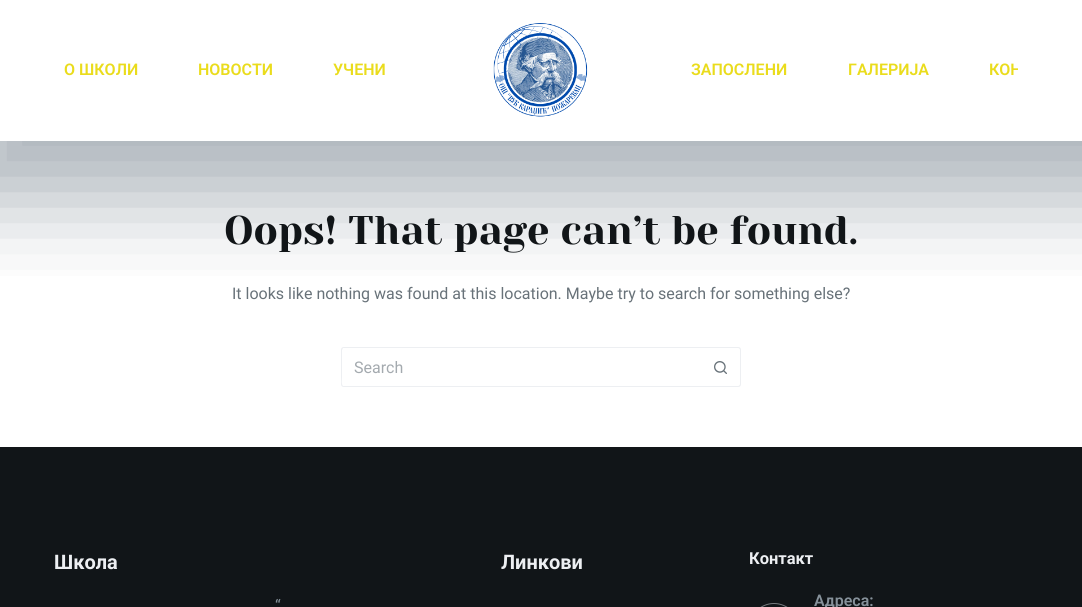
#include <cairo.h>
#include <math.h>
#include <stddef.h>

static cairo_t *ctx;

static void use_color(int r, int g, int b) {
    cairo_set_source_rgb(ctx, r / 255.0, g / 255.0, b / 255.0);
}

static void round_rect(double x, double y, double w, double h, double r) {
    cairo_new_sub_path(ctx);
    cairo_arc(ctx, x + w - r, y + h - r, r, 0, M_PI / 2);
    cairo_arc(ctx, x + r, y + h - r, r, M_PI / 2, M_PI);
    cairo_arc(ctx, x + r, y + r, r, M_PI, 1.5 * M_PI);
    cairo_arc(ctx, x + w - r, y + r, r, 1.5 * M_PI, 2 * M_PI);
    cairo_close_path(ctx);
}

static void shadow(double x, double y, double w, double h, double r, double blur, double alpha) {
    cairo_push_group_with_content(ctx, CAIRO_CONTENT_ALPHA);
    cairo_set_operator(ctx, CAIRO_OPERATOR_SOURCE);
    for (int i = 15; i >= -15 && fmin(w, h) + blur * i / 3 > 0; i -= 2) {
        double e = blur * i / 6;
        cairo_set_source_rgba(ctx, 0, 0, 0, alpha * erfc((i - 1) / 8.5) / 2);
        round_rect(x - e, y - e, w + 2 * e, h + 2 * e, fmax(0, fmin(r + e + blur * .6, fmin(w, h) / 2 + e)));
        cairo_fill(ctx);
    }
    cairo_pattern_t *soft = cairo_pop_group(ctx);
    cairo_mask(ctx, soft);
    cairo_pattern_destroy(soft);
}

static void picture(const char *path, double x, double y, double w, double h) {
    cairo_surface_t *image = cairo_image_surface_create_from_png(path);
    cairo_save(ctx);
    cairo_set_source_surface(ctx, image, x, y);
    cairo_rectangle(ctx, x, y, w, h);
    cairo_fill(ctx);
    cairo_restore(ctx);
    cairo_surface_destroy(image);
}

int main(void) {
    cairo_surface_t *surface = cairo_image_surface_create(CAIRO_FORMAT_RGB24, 1082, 607);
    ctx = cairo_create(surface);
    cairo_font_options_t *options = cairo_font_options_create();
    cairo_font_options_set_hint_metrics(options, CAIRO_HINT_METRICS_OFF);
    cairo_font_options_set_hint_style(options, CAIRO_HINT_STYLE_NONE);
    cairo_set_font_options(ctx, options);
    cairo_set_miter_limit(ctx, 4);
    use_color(255, 255, 255);
    cairo_paint(ctx);
    cairo_save(ctx);
    cairo_rectangle(ctx, 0, 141, 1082, 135);
    cairo_clip(ctx);
    use_color(43, 61, 79);
    shadow(-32, -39, 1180, 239, 0, 46.5, 0.39);
    cairo_restore(ctx);
    cairo_select_font_face(ctx, "Roboto SemiBold", CAIRO_FONT_SLANT_NORMAL, CAIRO_FONT_WEIGHT_NORMAL);
    cairo_set_font_size(ctx, 16);
    use_color(234, 220, 28);
    cairo_move_to(ctx, 64, 75);
    cairo_show_text(ctx, "О ШКОЛИ");
    cairo_move_to(ctx, 198, 75);
    cairo_show_text(ctx, "НОВОСТИ");
    cairo_move_to(ctx, 333, 75);
    cairo_show_text(ctx, "УЧЕНИ");
    picture("img1.png", 493, 23, 95, 94);
    cairo_move_to(ctx, 691, 75);
    cairo_show_text(ctx, "ЗАПОСЛЕНИ");
    cairo_move_to(ctx, 848, 75);
    cairo_show_text(ctx, "ГАЛЕРИЈА");
    cairo_save(ctx);
    cairo_rectangle(ctx, 691, 0, 327, 141);
    cairo_clip(ctx);
    cairo_move_to(ctx, 989, 75);
    cairo_show_text(ctx, "КОН");
    cairo_restore(ctx);
    cairo_select_font_face(ctx, "Yeseva One", CAIRO_FONT_SLANT_NORMAL, CAIRO_FONT_WEIGHT_NORMAL);
    cairo_set_font_size(ctx, 40);
    use_color(17, 21, 24);
    cairo_move_to(ctx, 224, 244);
    cairo_show_text(ctx, "Oops! That page can’t be found.");
    cairo_select_font_face(ctx, "Roboto", CAIRO_FONT_SLANT_NORMAL, CAIRO_FONT_WEIGHT_NORMAL);
    cairo_set_font_size(ctx, 16);
    use_color(104, 114, 121);
    cairo_move_to(ctx, 232, 299);
    cairo_show_text(ctx, "It looks like nothing was found at this location. Maybe try to search for something else?");
    use_color(237, 239, 242);
    cairo_set_fill_rule(ctx, CAIRO_FILL_RULE_EVEN_ODD);
    cairo_new_path(ctx);
    cairo_move_to(ctx, 344, 347);
    cairo_line_to(ctx, 701, 347);
    cairo_line_to(ctx, 701, 387);
    cairo_line_to(ctx, 344, 387);
    cairo_curve_to(ctx, 342, 387, 341, 386, 341, 384);
    cairo_line_to(ctx, 341, 350);
    cairo_curve_to(ctx, 341, 348, 342, 347, 344, 347);
    cairo_close_path(ctx);
    cairo_move_to(ctx, 344, 348);
    cairo_line_to(ctx, 701, 348);
    cairo_line_to(ctx, 701, 386);
    cairo_line_to(ctx, 343, 386);
    cairo_curve_to(ctx, 341, 384, 342, 379, 342, 378);
    cairo_line_to(ctx, 342, 350);
    cairo_line_to(ctx, 343, 348);
    cairo_close_path(ctx);
    cairo_fill(ctx);
    use_color(164, 170, 175);
    cairo_move_to(ctx, 354, 373);
    cairo_show_text(ctx, "Search");
    use_color(237, 239, 242);
    cairo_new_path(ctx);
    cairo_move_to(ctx, 701, 347);
    cairo_line_to(ctx, 738, 347);
    cairo_curve_to(ctx, 740, 347, 741, 348, 741, 350);
    cairo_line_to(ctx, 741, 384);
    cairo_curve_to(ctx, 741, 386, 740, 387, 738, 387);
    cairo_line_to(ctx, 701, 387);
    cairo_close_path(ctx);
    cairo_move_to(ctx, 701, 348);
    cairo_line_to(ctx, 738, 348);
    cairo_curve_to(ctx, 739, 348, 740, 349, 740, 350);
    cairo_line_to(ctx, 740, 384);
    cairo_curve_to(ctx, 740, 385, 739, 386, 738, 386);
    cairo_line_to(ctx, 701, 386);
    cairo_close_path(ctx);
    cairo_fill(ctx);
    picture("img2.png", 714, 361, 13, 13);
    use_color(17, 21, 24);
    cairo_rectangle(ctx, 0, 447, 1082, 160);
    cairo_fill(ctx);
    cairo_select_font_face(ctx, "Roboto", CAIRO_FONT_SLANT_NORMAL, CAIRO_FONT_WEIGHT_BOLD);
    cairo_set_font_size(ctx, 20);
    use_color(237, 239, 242);
    cairo_move_to(ctx, 54, 569);
    cairo_show_text(ctx, "Школа");
    cairo_select_font_face(ctx, "Roboto", CAIRO_FONT_SLANT_NORMAL, CAIRO_FONT_WEIGHT_NORMAL);
    cairo_set_font_size(ctx, 16);
    use_color(134, 145, 154);
    cairo_move_to(ctx, 275, 611);
    cairo_show_text(ctx, "“");
    cairo_select_font_face(ctx, "Roboto", CAIRO_FONT_SLANT_NORMAL, CAIRO_FONT_WEIGHT_BOLD);
    cairo_set_font_size(ctx, 20);
    use_color(237, 239, 242);
    cairo_move_to(ctx, 501, 569);
    cairo_show_text(ctx, "Линкови");
    cairo_set_font_size(ctx, 16.5);
    cairo_move_to(ctx, 749, 564);
    cairo_show_text(ctx, "Контакт");
    cairo_select_font_face(ctx, "Roboto SemiBold", CAIRO_FONT_SLANT_NORMAL, CAIRO_FONT_WEIGHT_NORMAL);
    cairo_set_font_size(ctx, 16);
    use_color(134, 145, 154);
    cairo_move_to(ctx, 814, 606);
    cairo_show_text(ctx, "Адреса:");
    round_rect(749.5, 603.5, 49, 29, 24.5);
    use_color(118, 122, 126);
    cairo_set_line_width(ctx, 1);
    cairo_stroke(ctx);
    cairo_surface_write_to_png(surface, "result.png");
    cairo_font_options_destroy(options);
    cairo_destroy(ctx);
    cairo_surface_destroy(surface);
    return 0;
}
